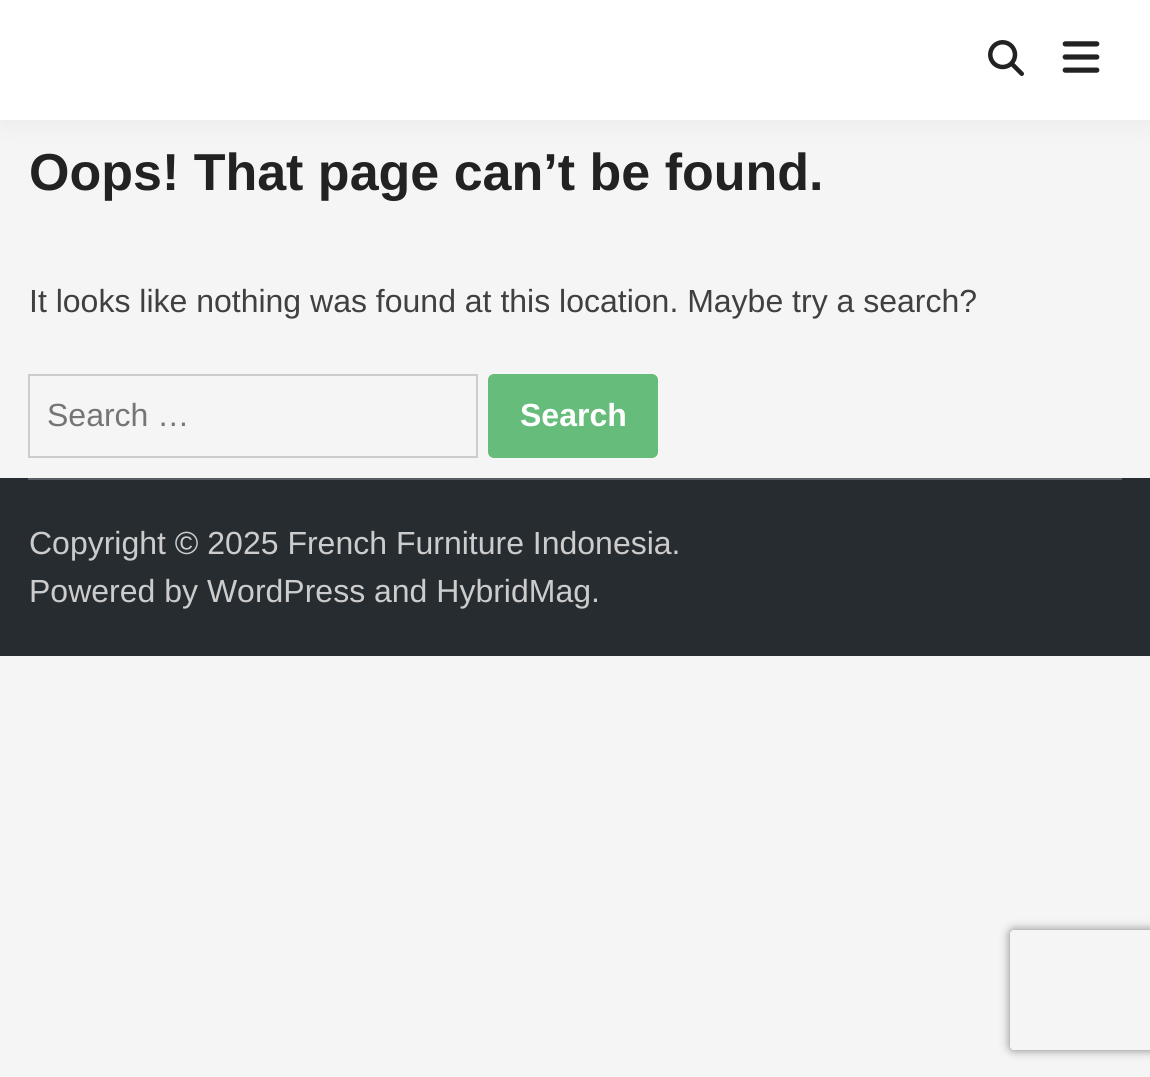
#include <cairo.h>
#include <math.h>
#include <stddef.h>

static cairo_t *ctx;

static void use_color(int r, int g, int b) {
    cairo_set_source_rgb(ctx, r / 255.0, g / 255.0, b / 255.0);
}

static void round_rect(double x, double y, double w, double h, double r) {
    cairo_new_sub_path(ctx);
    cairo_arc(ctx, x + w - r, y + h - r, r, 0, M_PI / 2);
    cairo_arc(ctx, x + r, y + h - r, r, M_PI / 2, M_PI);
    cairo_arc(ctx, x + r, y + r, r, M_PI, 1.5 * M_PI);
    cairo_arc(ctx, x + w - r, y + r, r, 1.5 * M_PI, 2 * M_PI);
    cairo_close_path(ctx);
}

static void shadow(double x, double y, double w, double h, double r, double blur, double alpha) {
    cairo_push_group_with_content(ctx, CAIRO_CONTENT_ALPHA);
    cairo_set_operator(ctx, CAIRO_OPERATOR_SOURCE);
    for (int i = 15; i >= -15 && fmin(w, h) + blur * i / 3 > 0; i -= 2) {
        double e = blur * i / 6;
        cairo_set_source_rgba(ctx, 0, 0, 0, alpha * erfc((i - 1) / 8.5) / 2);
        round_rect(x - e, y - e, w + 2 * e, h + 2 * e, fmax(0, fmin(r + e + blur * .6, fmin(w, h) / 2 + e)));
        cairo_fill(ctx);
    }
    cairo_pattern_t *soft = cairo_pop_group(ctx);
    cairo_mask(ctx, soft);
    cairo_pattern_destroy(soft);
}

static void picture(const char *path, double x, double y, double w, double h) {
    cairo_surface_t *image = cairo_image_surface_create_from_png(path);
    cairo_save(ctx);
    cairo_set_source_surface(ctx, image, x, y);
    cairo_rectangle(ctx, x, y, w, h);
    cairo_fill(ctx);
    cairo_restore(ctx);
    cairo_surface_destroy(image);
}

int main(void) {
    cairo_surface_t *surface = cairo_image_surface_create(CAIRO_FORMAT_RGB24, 1150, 1077);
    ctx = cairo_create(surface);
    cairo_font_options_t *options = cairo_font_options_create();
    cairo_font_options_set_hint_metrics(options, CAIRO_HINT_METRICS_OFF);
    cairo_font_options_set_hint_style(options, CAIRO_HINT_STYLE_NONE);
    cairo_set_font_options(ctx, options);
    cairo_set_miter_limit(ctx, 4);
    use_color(245, 245, 245);
    cairo_paint(ctx);
    use_color(0, 0, 0);
    shadow(0, 0, 1150, 120, 0, 15, 0.06);
    use_color(255, 255, 255);
    cairo_rectangle(ctx, 0, 0, 1150, 120);
    cairo_fill(ctx);
    picture("img1.png", 988, 40, 36, 36);
    picture("img2.png", 1062, 41, 38, 32);
    cairo_select_font_face(ctx, "Liberation Sans", CAIRO_FONT_SLANT_NORMAL, CAIRO_FONT_WEIGHT_BOLD);
    cairo_set_font_size(ctx, 52);
    use_color(34, 34, 34);
    cairo_move_to(ctx, 29, 190);
    cairo_show_text(ctx, "Oops! That page can’t be found.");
    cairo_select_font_face(ctx, "Liberation Sans", CAIRO_FONT_SLANT_NORMAL, CAIRO_FONT_WEIGHT_NORMAL);
    cairo_set_font_size(ctx, 32);
    use_color(64, 64, 64);
    cairo_move_to(ctx, 29, 312);
    cairo_show_text(ctx, "It looks like nothing was found at this location. Maybe try a search?");
    cairo_rectangle(ctx, 29, 375, 448, 82);
    use_color(204, 204, 204);
    cairo_stroke(ctx);
    use_color(117, 117, 117);
    cairo_move_to(ctx, 47, 426);
    cairo_show_text(ctx, "Search …");
    use_color(101, 188, 123);
    round_rect(488, 374, 170, 84, 6);
    cairo_fill(ctx);
    cairo_select_font_face(ctx, "Liberation Sans", CAIRO_FONT_SLANT_NORMAL, CAIRO_FONT_WEIGHT_BOLD);
    use_color(255, 255, 255);
    cairo_move_to(ctx, 520, 426);
    cairo_show_text(ctx, "Search");
    use_color(39, 44, 48);
    cairo_rectangle(ctx, 0, 478, 1150, 178);
    cairo_fill(ctx);
    use_color(89, 95, 100);
    cairo_rectangle(ctx, 28, 478, 1094, 2);
    cairo_fill(ctx);
    cairo_select_font_face(ctx, "Liberation Sans", CAIRO_FONT_SLANT_NORMAL, CAIRO_FONT_WEIGHT_NORMAL);
    use_color(204, 204, 204);
    cairo_move_to(ctx, 29, 554);
    cairo_show_text(ctx, "Copyright © 2025 French Furniture Indonesia.");
    cairo_move_to(ctx, 29, 602);
    cairo_show_text(ctx, "Powered by WordPress and HybridMag.");
    cairo_save(ctx);
    cairo_set_fill_rule(ctx, CAIRO_FILL_RULE_EVEN_ODD);
    cairo_new_path(ctx);
    cairo_move_to(ctx, 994, 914);
    cairo_line_to(ctx, 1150, 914);
    cairo_line_to(ctx, 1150, 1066);
    cairo_line_to(ctx, 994, 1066);
    cairo_close_path(ctx);
    cairo_move_to(ctx, 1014, 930);
    cairo_line_to(ctx, 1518, 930);
    cairo_curve_to(ctx, 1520, 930, 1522, 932, 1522, 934);
    cairo_line_to(ctx, 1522, 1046);
    cairo_curve_to(ctx, 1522, 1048, 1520, 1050, 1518, 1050);
    cairo_line_to(ctx, 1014, 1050);
    cairo_curve_to(ctx, 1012, 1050, 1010, 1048, 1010, 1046);
    cairo_line_to(ctx, 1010, 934);
    cairo_curve_to(ctx, 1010, 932, 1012, 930, 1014, 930);
    cairo_close_path(ctx);
    cairo_clip(ctx);
    use_color(128, 128, 128);
    shadow(1010, 930, 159, 120, 4, 5, 1);
    cairo_restore(ctx);
    cairo_surface_write_to_png(surface, "result.png");
    cairo_font_options_destroy(options);
    cairo_destroy(ctx);
    cairo_surface_destroy(surface);
    return 0;
}
